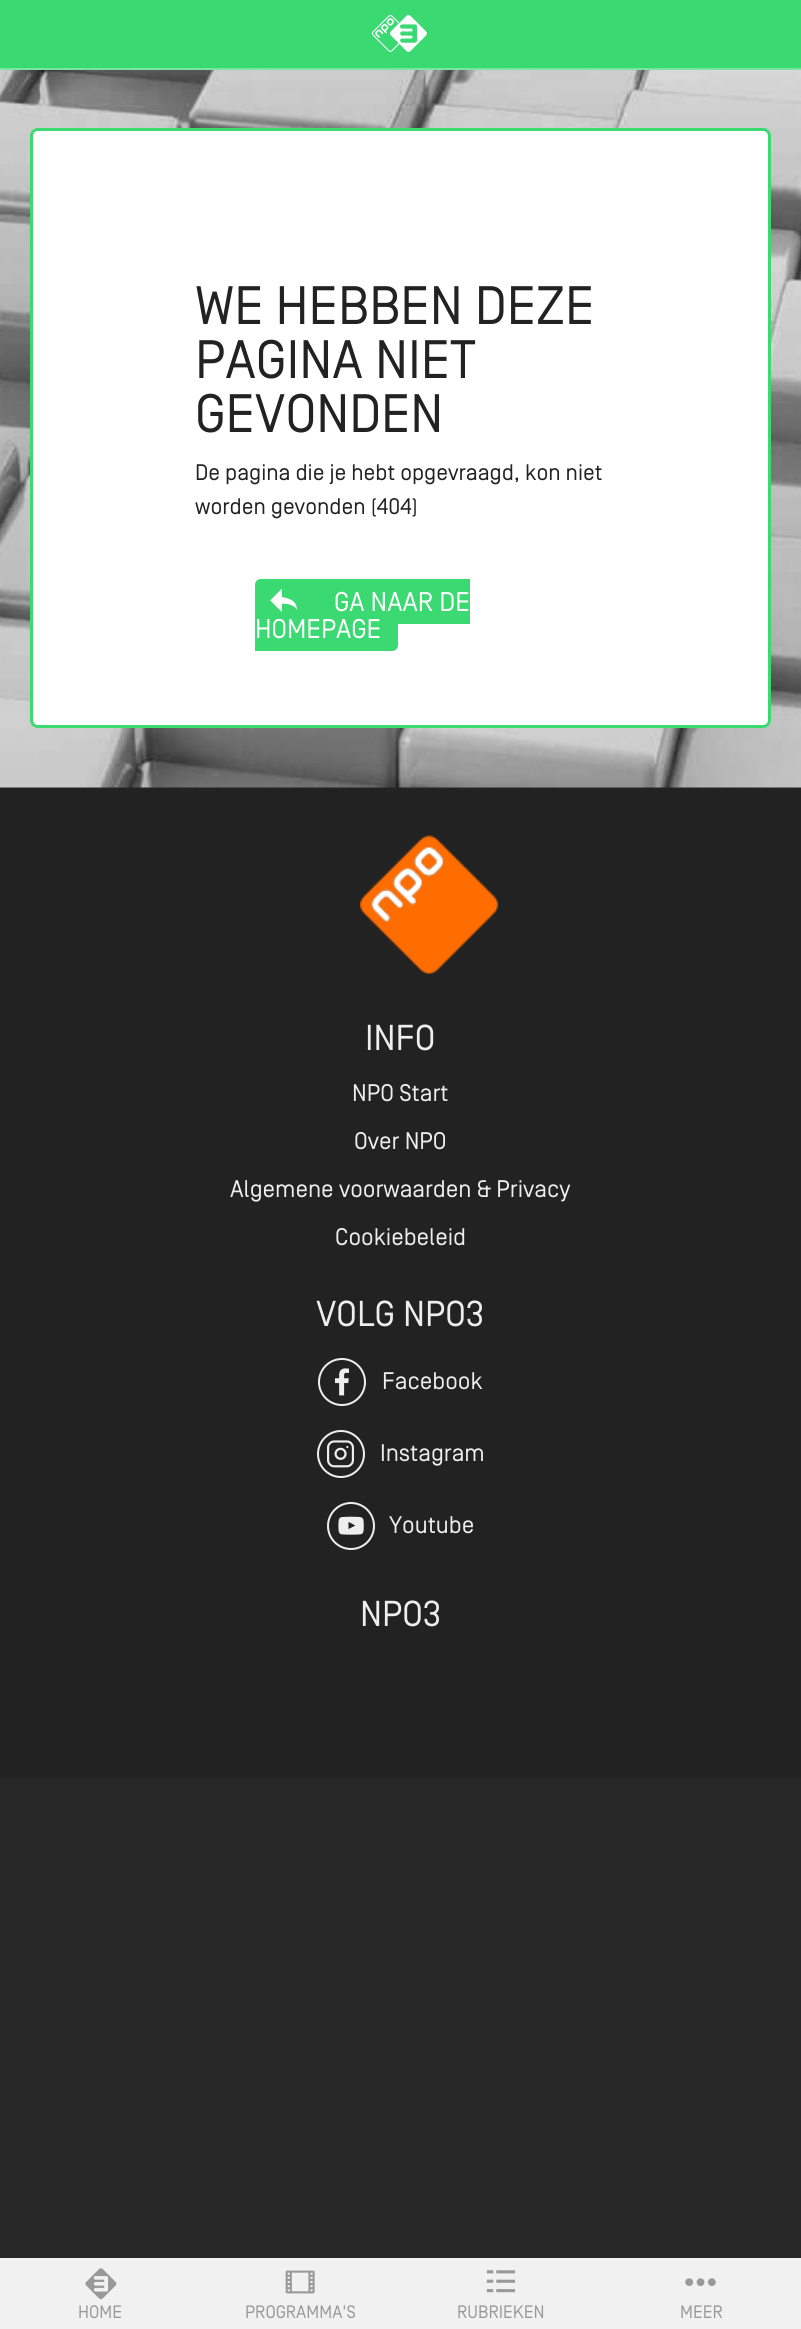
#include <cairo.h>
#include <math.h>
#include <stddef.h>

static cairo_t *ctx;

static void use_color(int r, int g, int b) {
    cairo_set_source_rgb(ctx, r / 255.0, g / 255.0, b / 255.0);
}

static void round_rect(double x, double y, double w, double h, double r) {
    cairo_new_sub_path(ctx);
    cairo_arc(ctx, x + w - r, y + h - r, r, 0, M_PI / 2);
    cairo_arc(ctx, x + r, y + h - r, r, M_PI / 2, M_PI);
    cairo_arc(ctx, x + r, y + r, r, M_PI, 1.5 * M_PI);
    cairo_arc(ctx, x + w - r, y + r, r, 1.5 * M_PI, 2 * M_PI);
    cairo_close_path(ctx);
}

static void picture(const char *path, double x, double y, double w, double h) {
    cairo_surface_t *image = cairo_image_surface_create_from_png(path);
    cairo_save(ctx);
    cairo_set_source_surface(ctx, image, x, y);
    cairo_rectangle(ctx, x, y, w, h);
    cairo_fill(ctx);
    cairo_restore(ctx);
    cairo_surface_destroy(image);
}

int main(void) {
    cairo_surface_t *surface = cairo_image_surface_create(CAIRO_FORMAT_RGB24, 801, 2329);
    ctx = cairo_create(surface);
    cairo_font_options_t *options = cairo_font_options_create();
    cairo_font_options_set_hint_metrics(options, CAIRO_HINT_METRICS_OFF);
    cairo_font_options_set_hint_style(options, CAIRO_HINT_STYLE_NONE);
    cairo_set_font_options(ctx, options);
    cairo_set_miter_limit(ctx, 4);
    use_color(39, 39, 39);
    cairo_paint(ctx);
    use_color(59, 217, 114);
    cairo_rectangle(ctx, 0, 0, 801, 68);
    cairo_fill(ctx);
    picture("img1.png", 372, 15, 55, 37);
    use_color(123, 229, 160);
    cairo_rectangle(ctx, 0, 68, 801, 2);
    cairo_fill(ctx);
    picture("img2.png", 0, 70, 801, 718);
    use_color(255, 255, 255);
    round_rect(31.5, 129.5, 738, 597, 6.5);
    cairo_fill_preserve(ctx);
    use_color(59, 217, 114);
    cairo_set_line_width(ctx, 3);
    cairo_stroke(ctx);
    cairo_select_font_face(ctx, "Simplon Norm", CAIRO_FONT_SLANT_NORMAL, CAIRO_FONT_WEIGHT_NORMAL);
    cairo_set_font_size(ctx, 54);
    use_color(34, 34, 34);
    cairo_move_to(ctx, 195, 324);
    cairo_show_text(ctx, "WE HEBBEN DEZE");
    cairo_move_to(ctx, 195, 378);
    cairo_show_text(ctx, "PAGINA NIET");
    cairo_move_to(ctx, 195, 432);
    cairo_show_text(ctx, "GEVONDEN");
    cairo_set_font_size(ctx, 22.5);
    cairo_move_to(ctx, 195, 480);
    cairo_show_text(ctx, "De pagina die je hebt opgevraagd, kon niet");
    cairo_move_to(ctx, 195, 514);
    cairo_show_text(ctx, "worden gevonden (404)");
    use_color(59, 217, 114);
    cairo_new_path(ctx);
    cairo_move_to(ctx, 261, 579);
    cairo_line_to(ctx, 327, 579);
    cairo_line_to(ctx, 327, 621);
    cairo_line_to(ctx, 261, 621);
    cairo_curve_to(ctx, 257.5, 621, 255, 618.5, 255, 615);
    cairo_line_to(ctx, 255, 585);
    cairo_curve_to(ctx, 255, 581.5, 257.5, 579, 261, 579);
    cairo_close_path(ctx);
    cairo_fill(ctx);
    cairo_rectangle(ctx, 327, 579, 143, 45);
    cairo_fill(ctx);
    cairo_new_path(ctx);
    cairo_move_to(ctx, 255, 606);
    cairo_line_to(ctx, 392, 606);
    cairo_curve_to(ctx, 395.5, 606, 398, 608.5, 398, 612);
    cairo_line_to(ctx, 398, 645);
    cairo_curve_to(ctx, 398, 648.5, 395.5, 651, 392, 651);
    cairo_line_to(ctx, 255, 651);
    cairo_close_path(ctx);
    cairo_fill(ctx);
    picture("img3.png", 270, 588, 27, 24);
    cairo_set_font_size(ctx, 27);
    use_color(255, 255, 255);
    cairo_move_to(ctx, 334, 611);
    cairo_show_text(ctx, "GA NAAR DE");
    cairo_move_to(ctx, 255, 638);
    cairo_show_text(ctx, "HOMEPAGE");
    use_color(34, 34, 34);
    cairo_rectangle(ctx, 0, 788, 801, 990);
    cairo_fill(ctx);
    picture("img4.png", 360, 835, 138, 139);
    cairo_set_font_size(ctx, 36);
    use_color(238, 238, 238);
    cairo_move_to(ctx, 365, 1050);
    cairo_show_text(ctx, "INFO");
    cairo_set_font_size(ctx, 24);
    cairo_move_to(ctx, 352, 1101);
    cairo_show_text(ctx, "NPO Start");
    cairo_move_to(ctx, 354, 1149);
    cairo_show_text(ctx, "Over NPO");
    cairo_move_to(ctx, 230, 1197);
    cairo_show_text(ctx, "Algemene voorwaarden & Privacy");
    cairo_move_to(ctx, 335, 1245);
    cairo_show_text(ctx, "Cookiebeleid");
    cairo_set_font_size(ctx, 36);
    cairo_move_to(ctx, 316, 1326);
    cairo_show_text(ctx, "VOLG NPO3");
    cairo_new_path(ctx);
    cairo_arc(ctx, 342, 1382, 23, 0, 2 * M_PI);
    cairo_set_line_width(ctx, 2);
    cairo_stroke(ctx);
    picture("img5.png", 335, 1368, 14, 28);
    cairo_set_font_size(ctx, 24);
    cairo_move_to(ctx, 382, 1389);
    cairo_show_text(ctx, "Facebook");
    cairo_new_path(ctx);
    cairo_arc(ctx, 341, 1454, 23, 0, 2 * M_PI);
    cairo_stroke(ctx);
    picture("img6.png", 327, 1440, 27, 28);
    cairo_move_to(ctx, 380, 1461);
    cairo_show_text(ctx, "Instagram");
    cairo_new_path(ctx);
    cairo_arc(ctx, 351, 1526, 23, 0, 2 * M_PI);
    cairo_stroke(ctx);
    picture("img7.png", 338, 1516, 26, 19);
    cairo_move_to(ctx, 389, 1533);
    cairo_show_text(ctx, "Youtube");
    cairo_set_font_size(ctx, 36);
    cairo_move_to(ctx, 360, 1626);
    cairo_show_text(ctx, "NPO3");
    use_color(241, 241, 241);
    cairo_rectangle(ctx, 0, 2258, 801, 71);
    cairo_fill(ctx);
    picture("img8.png", 85, 2268, 32, 32);
    cairo_set_font_size(ctx, 18);
    use_color(153, 153, 153);
    cairo_move_to(ctx, 78, 2318);
    cairo_show_text(ctx, "HOME");
    picture("img9.png", 285, 2270, 30, 24);
    cairo_move_to(ctx, 245, 2318);
    cairo_show_text(ctx, "PROGRAMMA'S");
    picture("img10.png", 486, 2270, 30, 23);
    cairo_move_to(ctx, 457, 2318);
    cairo_show_text(ctx, "RUBRIEKEN");
    picture("img11.png", 685, 2278, 31, 8);
    cairo_move_to(ctx, 680, 2318);
    cairo_show_text(ctx, "MEER");
    cairo_surface_write_to_png(surface, "result.png");
    cairo_font_options_destroy(options);
    cairo_destroy(ctx);
    cairo_surface_destroy(surface);
    return 0;
}
